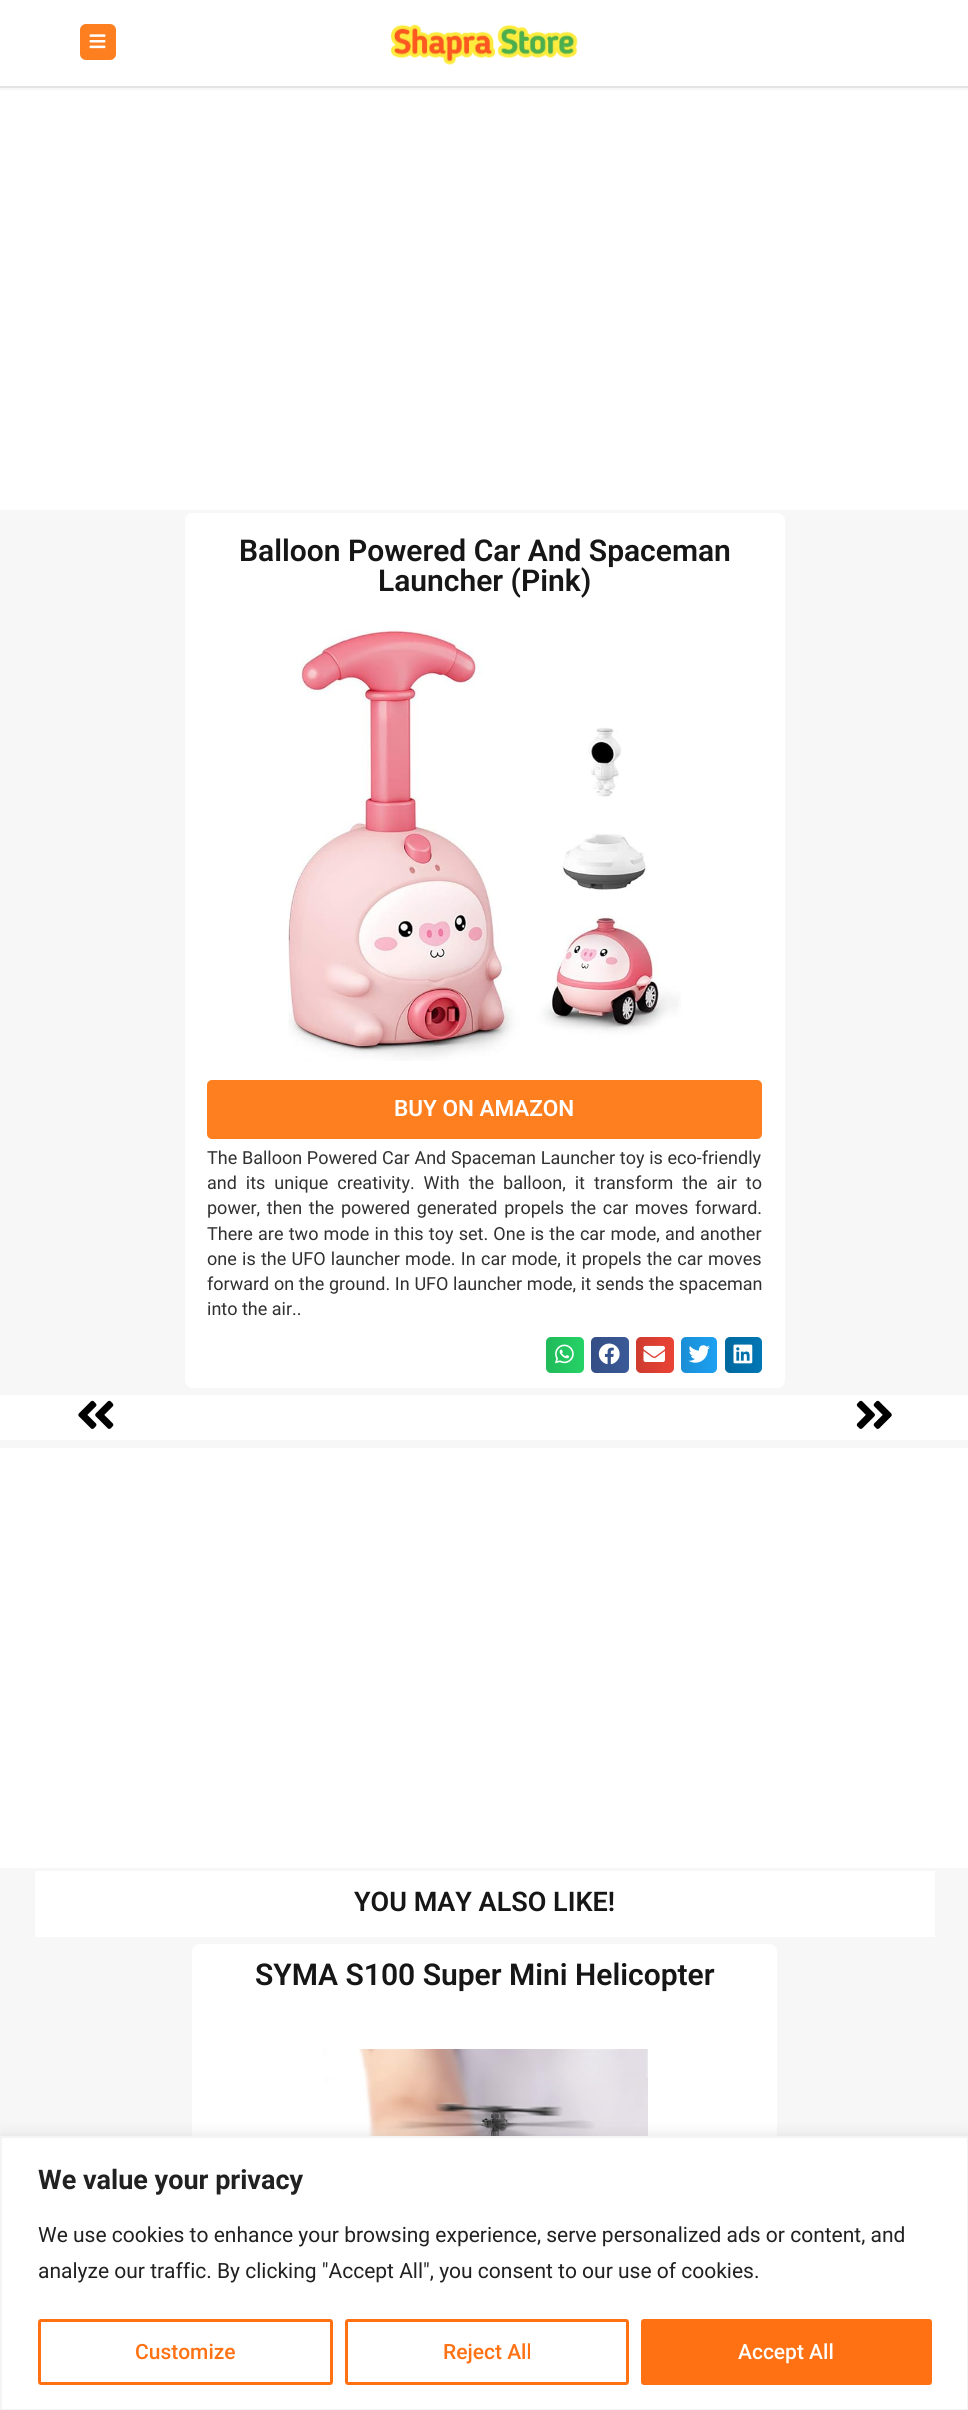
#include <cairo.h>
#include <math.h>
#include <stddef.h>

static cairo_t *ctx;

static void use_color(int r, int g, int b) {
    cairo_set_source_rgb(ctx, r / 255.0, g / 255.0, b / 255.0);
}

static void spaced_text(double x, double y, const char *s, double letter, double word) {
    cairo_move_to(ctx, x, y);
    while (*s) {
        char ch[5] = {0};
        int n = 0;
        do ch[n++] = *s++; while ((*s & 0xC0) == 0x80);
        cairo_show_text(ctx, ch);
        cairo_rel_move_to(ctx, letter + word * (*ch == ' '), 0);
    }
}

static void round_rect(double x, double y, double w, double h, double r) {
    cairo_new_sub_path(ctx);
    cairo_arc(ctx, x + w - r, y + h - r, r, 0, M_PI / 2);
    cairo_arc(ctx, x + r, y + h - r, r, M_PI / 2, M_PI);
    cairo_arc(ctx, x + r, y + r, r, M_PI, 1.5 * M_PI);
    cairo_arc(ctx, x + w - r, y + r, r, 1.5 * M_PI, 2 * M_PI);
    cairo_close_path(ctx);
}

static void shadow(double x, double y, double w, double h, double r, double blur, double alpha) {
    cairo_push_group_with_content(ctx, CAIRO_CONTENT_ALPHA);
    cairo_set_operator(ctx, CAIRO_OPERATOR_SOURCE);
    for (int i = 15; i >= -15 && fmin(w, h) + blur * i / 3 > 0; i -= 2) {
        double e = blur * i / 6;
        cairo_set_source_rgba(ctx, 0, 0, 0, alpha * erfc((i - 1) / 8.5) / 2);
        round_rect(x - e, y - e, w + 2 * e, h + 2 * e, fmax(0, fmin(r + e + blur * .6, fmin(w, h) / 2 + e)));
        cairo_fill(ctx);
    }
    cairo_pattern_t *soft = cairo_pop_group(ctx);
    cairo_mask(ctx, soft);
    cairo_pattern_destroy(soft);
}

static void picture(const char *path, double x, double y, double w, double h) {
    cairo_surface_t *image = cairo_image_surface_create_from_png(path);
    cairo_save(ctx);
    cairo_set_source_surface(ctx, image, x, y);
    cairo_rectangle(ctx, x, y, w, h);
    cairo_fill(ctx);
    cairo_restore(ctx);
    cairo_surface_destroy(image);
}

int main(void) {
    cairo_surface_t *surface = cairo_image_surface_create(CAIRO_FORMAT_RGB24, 968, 2410);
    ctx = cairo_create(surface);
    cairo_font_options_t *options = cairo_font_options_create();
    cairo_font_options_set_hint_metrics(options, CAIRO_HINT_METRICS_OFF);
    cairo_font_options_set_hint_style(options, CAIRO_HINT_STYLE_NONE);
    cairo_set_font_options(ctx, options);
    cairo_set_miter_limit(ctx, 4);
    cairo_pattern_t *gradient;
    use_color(247, 247, 247);
    cairo_paint(ctx);
    use_color(255, 255, 255);
    cairo_rectangle(ctx, 0, 0, 968, 86);
    cairo_fill(ctx);
    use_color(228, 228, 228);
    cairo_rectangle(ctx, 0, 86, 968, 2);
    cairo_fill(ctx);
    use_color(253, 127, 32);
    round_rect(80, 24, 36, 36, 6);
    cairo_fill(ctx);
    picture("img1.png", 89, 34, 17, 15);
    picture("img2.png", 391, 24, 187, 41);
    use_color(255, 255, 255);
    cairo_rectangle(ctx, 0, 90, 968, 420);
    cairo_fill(ctx);
    round_rect(185, 513, 600, 875, 8);
    cairo_fill(ctx);
    cairo_select_font_face(ctx, "Roboto SemiBold", CAIRO_FONT_SLANT_NORMAL, CAIRO_FONT_WEIGHT_NORMAL);
    cairo_set_font_size(ctx, 30);
    use_color(22, 22, 22);
    cairo_move_to(ctx, 239, 561);
    cairo_show_text(ctx, "Balloon Powered Car And Spaceman");
    cairo_move_to(ctx, 378, 591);
    cairo_show_text(ctx, "Launcher (Pink)");
    picture("img3.png", 288, 630, 393, 431);
    use_color(253, 127, 32);
    round_rect(207, 1080, 555, 59, 5);
    cairo_fill(ctx);
    cairo_set_font_size(ctx, 22.5);
    use_color(255, 255, 255);
    cairo_move_to(ctx, 394, 1116);
    cairo_show_text(ctx, "BUY ON AMAZON");
    cairo_select_font_face(ctx, "Roboto", CAIRO_FONT_SLANT_NORMAL, CAIRO_FONT_WEIGHT_NORMAL);
    cairo_set_font_size(ctx, 18);
    use_color(49, 49, 49);
    spaced_text(207, 1164, "The Balloon Powered Car And Spaceman Launcher toy is eco-friendly", 0, 0.25);
    spaced_text(207, 1189, "and its unique creativity. With the balloon, it transform the air to", 0, 4.5);
    spaced_text(207, 1214, "power, then the powered generated propels the car moves forward.", 0, 2.25);
    spaced_text(207, 1240, "There are two mode in this toy set. One is the car mode, and another", 0, 0.75);
    spaced_text(207, 1265, "one is the UFO launcher mode. In car mode, it propels the car moves", 0, 0.8);
    spaced_text(207, 1290, "forward on the ground. In UFO launcher mode, it sends the spaceman", 0, 0.25);
    cairo_move_to(ctx, 207, 1315);
    cairo_show_text(ctx, "into the air..");
    use_color(37, 211, 102);
    round_rect(546, 1337, 38, 36, 5);
    cairo_fill(ctx);
    gradient = cairo_pattern_create_linear(546, 1355, 584, 1355);
    cairo_pattern_add_color_stop_rgba(gradient, 0, 0, 0, 0, 0.12);
    cairo_pattern_add_color_stop_rgba(gradient, 1, 0, 0, 0, 0);
    cairo_set_source(ctx, gradient);
    cairo_pattern_destroy(gradient);
    round_rect(546, 1337, 38, 36, 5);
    cairo_fill(ctx);
    picture("img4.png", 555, 1344, 19, 20);
    use_color(59, 89, 152);
    round_rect(591, 1337, 38, 36, 5);
    cairo_fill(ctx);
    gradient = cairo_pattern_create_linear(591, 1355, 629, 1355);
    cairo_pattern_add_color_stop_rgba(gradient, 0, 0, 0, 0, 0.12);
    cairo_pattern_add_color_stop_rgba(gradient, 1, 0, 0, 0, 0);
    cairo_set_source(ctx, gradient);
    cairo_pattern_destroy(gradient);
    round_rect(591, 1337, 38, 36, 5);
    cairo_fill(ctx);
    picture("img5.png", 598, 1343, 22, 22);
    use_color(234, 67, 53);
    round_rect(636, 1337, 38, 36, 5);
    cairo_fill(ctx);
    gradient = cairo_pattern_create_linear(636, 1355, 674, 1355);
    cairo_pattern_add_color_stop_rgba(gradient, 0, 0, 0, 0, 0.12);
    cairo_pattern_add_color_stop_rgba(gradient, 1, 0, 0, 0, 0);
    cairo_set_source(ctx, gradient);
    cairo_pattern_destroy(gradient);
    round_rect(636, 1337, 38, 36, 5);
    cairo_fill(ctx);
    picture("img6.png", 643, 1345, 22, 17);
    use_color(29, 161, 242);
    round_rect(681, 1337, 36, 36, 5);
    cairo_fill(ctx);
    gradient = cairo_pattern_create_linear(681, 1355, 717, 1355);
    cairo_pattern_add_color_stop_rgba(gradient, 0, 0, 0, 0, 0.12);
    cairo_pattern_add_color_stop_rgba(gradient, 1, 0, 0, 0, 0);
    cairo_set_source(ctx, gradient);
    cairo_pattern_destroy(gradient);
    round_rect(681, 1337, 36, 36, 5);
    cairo_fill(ctx);
    picture("img7.png", 688, 1345, 22, 18);
    use_color(0, 119, 181);
    round_rect(725, 1337, 37, 36, 5);
    cairo_fill(ctx);
    gradient = cairo_pattern_create_linear(725, 1355, 762, 1355);
    cairo_pattern_add_color_stop_rgba(gradient, 0, 0, 0, 0, 0.12);
    cairo_pattern_add_color_stop_rgba(gradient, 1, 0, 0, 0, 0);
    cairo_set_source(ctx, gradient);
    cairo_pattern_destroy(gradient);
    round_rect(725, 1337, 37, 36, 5);
    cairo_fill(ctx);
    picture("img8.png", 733, 1344, 20, 20);
    use_color(255, 255, 255);
    cairo_rectangle(ctx, 0, 1395, 968, 45);
    cairo_fill(ctx);
    picture("img9.png", 78, 1400, 36, 29);
    picture("img10.png", 856, 1400, 36, 29);
    cairo_rectangle(ctx, 0, 1448, 968, 420);
    cairo_fill(ctx);
    cairo_rectangle(ctx, 35, 1871, 900, 66);
    cairo_fill(ctx);
    cairo_select_font_face(ctx, "Roboto SemiBold", CAIRO_FONT_SLANT_NORMAL, CAIRO_FONT_WEIGHT_NORMAL);
    cairo_set_font_size(ctx, 27);
    use_color(22, 22, 22);
    cairo_move_to(ctx, 354, 1911);
    cairo_show_text(ctx, "YOU MAY ALSO LIKE!");
    use_color(255, 255, 255);
    round_rect(192, 1944, 585, 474, 8);
    cairo_fill(ctx);
    cairo_set_font_size(ctx, 30);
    use_color(22, 22, 22);
    cairo_move_to(ctx, 255, 1985);
    cairo_show_text(ctx, "SYMA S100 Super Mini Helicopter");
    picture("img11.png", 322, 2049, 326, 87);
    use_color(172, 171, 171);
    shadow(0, 2135, 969, 274, 0, 7.5, 0.3);
    use_color(255, 255, 255);
    cairo_rectangle(ctx, 1, 2137, 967, 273);
    cairo_fill_preserve(ctx);
    use_color(244, 244, 244);
    cairo_stroke(ctx);
    cairo_select_font_face(ctx, "Roboto", CAIRO_FONT_SLANT_NORMAL, CAIRO_FONT_WEIGHT_BOLD);
    cairo_set_font_size(ctx, 27);
    use_color(33, 33, 33);
    cairo_move_to(ctx, 38, 2189);
    cairo_show_text(ctx, "We value your privacy");
    cairo_select_font_face(ctx, "Roboto", CAIRO_FONT_SLANT_NORMAL, CAIRO_FONT_WEIGHT_NORMAL);
    cairo_set_font_size(ctx, 21);
    cairo_move_to(ctx, 38, 2242);
    cairo_show_text(ctx, "We use cookies to enhance your browsing experience, serve personalized ads or content, and");
    cairo_move_to(ctx, 38, 2278);
    cairo_show_text(ctx, "analyze our traffic. By clicking \"Accept All\", you consent to our use of cookies.");
    round_rect(39.5, 2320.5, 292, 63, 1.5);
    use_color(255, 113, 18);
    cairo_set_line_width(ctx, 3);
    cairo_stroke(ctx);
    cairo_select_font_face(ctx, "Roboto Medium", CAIRO_FONT_SLANT_NORMAL, CAIRO_FONT_WEIGHT_NORMAL);
    cairo_move_to(ctx, 135, 2359);
    cairo_show_text(ctx, "Customize");
    round_rect(346.5, 2320.5, 281, 63, 1.5);
    cairo_stroke(ctx);
    cairo_move_to(ctx, 443, 2359);
    cairo_show_text(ctx, "Reject All");
    round_rect(642.5, 2320.5, 288, 63, 1.5);
    cairo_fill_preserve(ctx);
    cairo_stroke(ctx);
    use_color(255, 255, 255);
    cairo_move_to(ctx, 738, 2359);
    cairo_show_text(ctx, "Accept All");
    cairo_surface_write_to_png(surface, "result.png");
    cairo_font_options_destroy(options);
    cairo_destroy(ctx);
    cairo_surface_destroy(surface);
    return 0;
}
